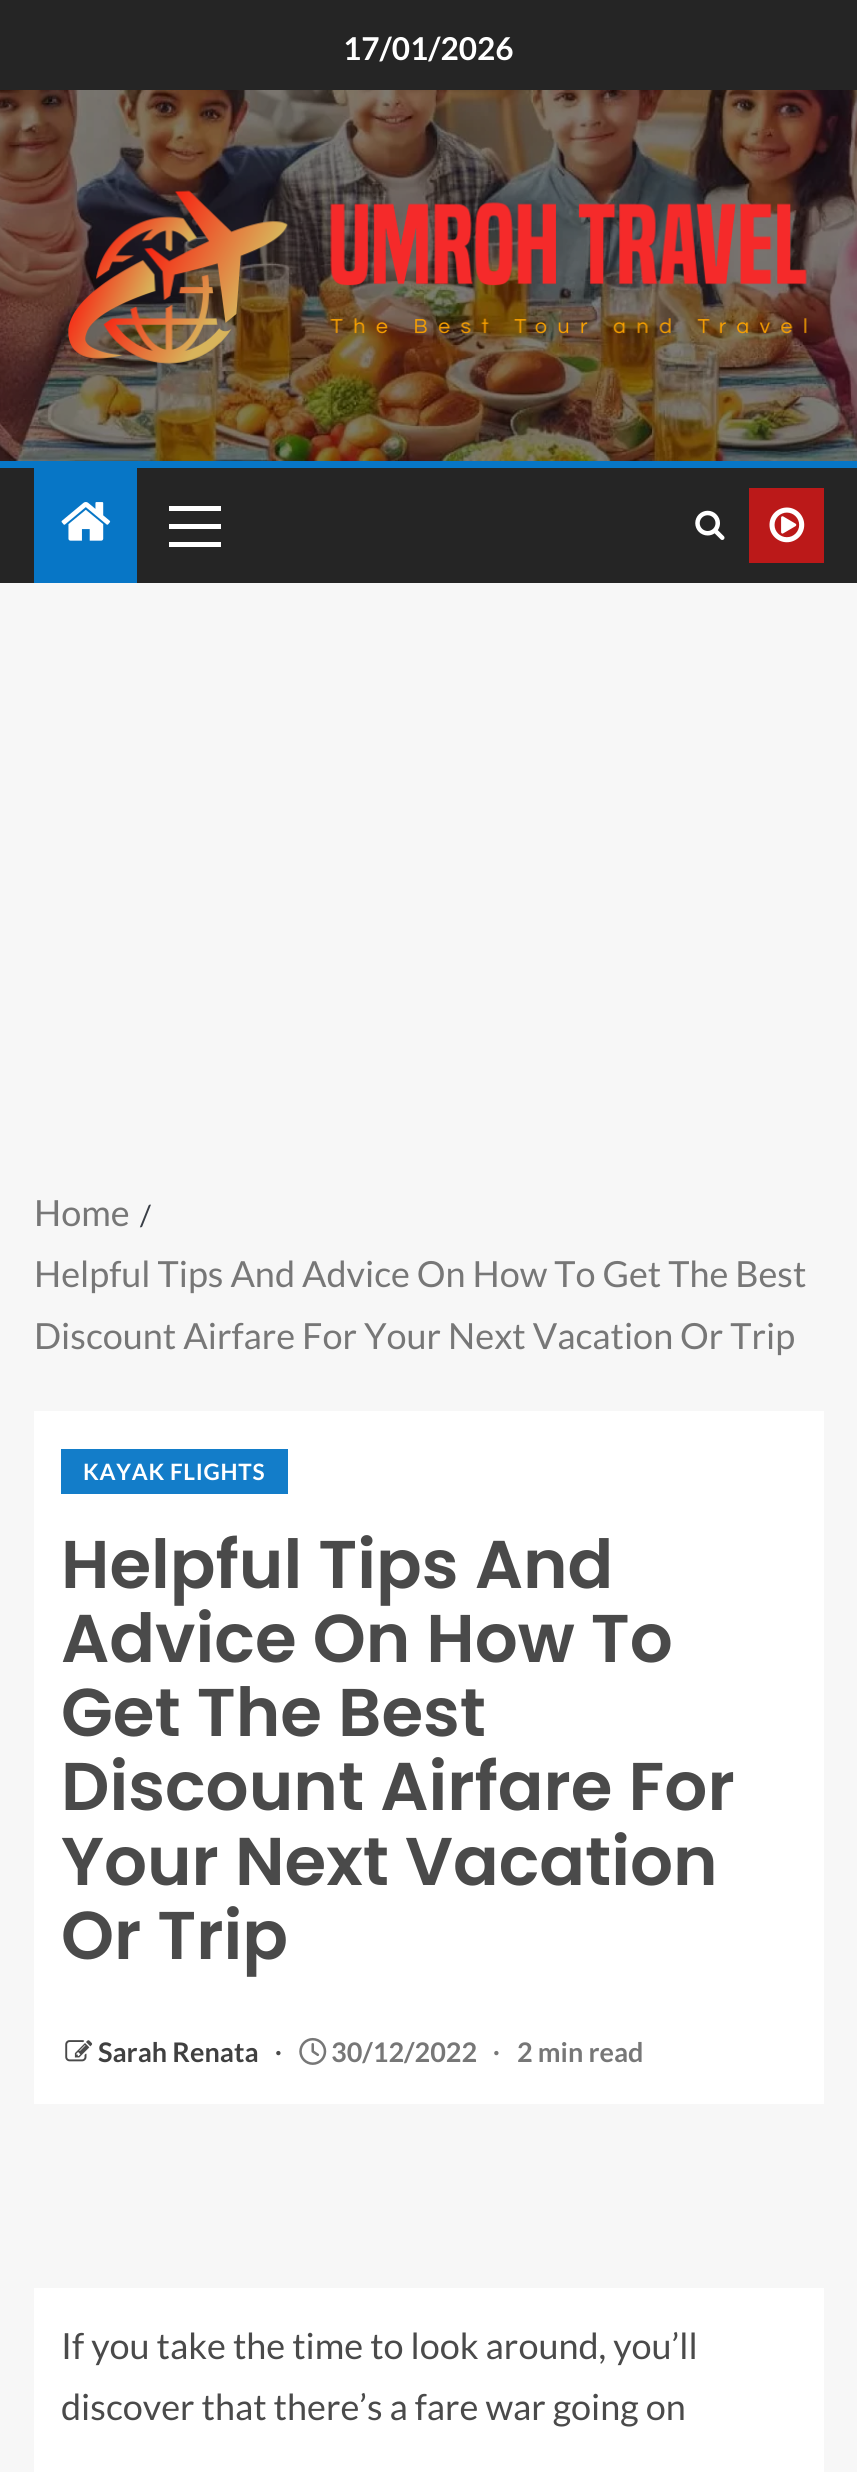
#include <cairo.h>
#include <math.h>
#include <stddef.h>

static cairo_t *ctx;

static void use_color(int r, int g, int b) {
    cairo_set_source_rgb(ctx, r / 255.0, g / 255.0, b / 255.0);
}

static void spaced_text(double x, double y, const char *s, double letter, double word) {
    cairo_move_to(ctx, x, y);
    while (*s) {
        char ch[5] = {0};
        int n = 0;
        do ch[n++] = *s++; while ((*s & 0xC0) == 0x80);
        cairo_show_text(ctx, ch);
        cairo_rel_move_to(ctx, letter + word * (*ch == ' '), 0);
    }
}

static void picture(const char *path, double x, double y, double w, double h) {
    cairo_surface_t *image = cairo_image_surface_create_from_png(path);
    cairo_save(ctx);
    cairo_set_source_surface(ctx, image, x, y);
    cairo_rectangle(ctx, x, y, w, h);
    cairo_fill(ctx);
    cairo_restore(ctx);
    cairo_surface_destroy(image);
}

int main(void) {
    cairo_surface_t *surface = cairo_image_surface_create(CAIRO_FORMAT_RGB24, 857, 2472);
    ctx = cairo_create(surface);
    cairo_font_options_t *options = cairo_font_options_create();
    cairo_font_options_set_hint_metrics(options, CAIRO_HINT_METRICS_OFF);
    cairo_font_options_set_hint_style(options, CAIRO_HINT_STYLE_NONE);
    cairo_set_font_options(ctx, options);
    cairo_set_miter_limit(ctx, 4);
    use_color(247, 247, 247);
    cairo_paint(ctx);
    use_color(37, 37, 37);
    cairo_rectangle(ctx, 0, 0, 857, 90);
    cairo_fill(ctx);
    cairo_select_font_face(ctx, "Lato", CAIRO_FONT_SLANT_NORMAL, CAIRO_FONT_WEIGHT_BOLD);
    cairo_set_font_size(ctx, 31.5);
    use_color(255, 255, 255);
    cairo_move_to(ctx, 343, 60);
    cairo_show_text(ctx, "17/01/2026");
    picture("img1.png", 0, 90, 857, 371);
    picture("img2.png", 68, 190, 739, 174);
    use_color(37, 37, 37);
    cairo_rectangle(ctx, 0, 468, 857, 115);
    cairo_fill(ctx);
    use_color(7, 118, 198);
    cairo_rectangle(ctx, 0, 461, 857, 7);
    cairo_fill(ctx);
    cairo_rectangle(ctx, 34, 468, 103, 115);
    cairo_fill(ctx);
    picture("img3.png", 61, 502, 50, 39);
    use_color(255, 255, 255);
    cairo_rectangle(ctx, 169, 524, 52, 5);
    cairo_fill(ctx);
    cairo_rectangle(ctx, 169, 506, 52, 5);
    cairo_fill(ctx);
    cairo_rectangle(ctx, 169, 542, 52, 5);
    cairo_fill(ctx);
    picture("img4.png", 695, 510, 30, 30);
    use_color(187, 25, 25);
    cairo_rectangle(ctx, 749, 488, 75, 75);
    cairo_fill(ctx);
    picture("img5.png", 769, 507, 36, 36);
    cairo_select_font_face(ctx, "Lato", CAIRO_FONT_SLANT_NORMAL, CAIRO_FONT_WEIGHT_NORMAL);
    cairo_set_font_size(ctx, 36);
    use_color(119, 119, 119);
    cairo_move_to(ctx, 34, 1226);
    cairo_show_text(ctx, "Home");
    cairo_set_font_size(ctx, 29);
    use_color(57, 62, 70);
    cairo_move_to(ctx, 140, 1226);
    cairo_show_text(ctx, "/");
    cairo_set_font_size(ctx, 36);
    use_color(119, 119, 119);
    cairo_move_to(ctx, 34, 1287);
    cairo_show_text(ctx, "Helpful Tips And Advice On How To Get The Best");
    cairo_move_to(ctx, 34, 1349);
    cairo_show_text(ctx, "Discount Airfare For Your Next Vacation Or Trip");
    use_color(255, 255, 255);
    cairo_rectangle(ctx, 34, 1411, 790, 693);
    cairo_fill(ctx);
    use_color(19, 125, 201);
    cairo_rectangle(ctx, 61, 1449, 227, 45);
    cairo_fill(ctx);
    cairo_select_font_face(ctx, "Lato", CAIRO_FONT_SLANT_NORMAL, CAIRO_FONT_WEIGHT_BOLD);
    cairo_set_font_size(ctx, 22.5);
    use_color(255, 255, 255);
    spaced_text(83, 1480, "KAYAK FLIGHTS", 0.75, 0);
    cairo_select_font_face(ctx, "Poppins SemiBold", CAIRO_FONT_SLANT_NORMAL, CAIRO_FONT_WEIGHT_NORMAL);
    cairo_set_font_size(ctx, 67.5);
    use_color(74, 74, 74);
    cairo_move_to(ctx, 61, 1588);
    cairo_show_text(ctx, "Helpful Tips And");
    cairo_move_to(ctx, 61, 1662);
    cairo_show_text(ctx, "Advice On How To");
    cairo_move_to(ctx, 61, 1736);
    cairo_show_text(ctx, "Get The Best");
    cairo_move_to(ctx, 61, 1810);
    cairo_show_text(ctx, "Discount Airfare For");
    cairo_move_to(ctx, 61, 1885);
    cairo_show_text(ctx, "Your Next Vacation");
    cairo_move_to(ctx, 61, 1959);
    cairo_show_text(ctx, "Or Trip");
    picture("img6.png", 65, 2040, 28, 22);
    cairo_select_font_face(ctx, "Lato", CAIRO_FONT_SLANT_NORMAL, CAIRO_FONT_WEIGHT_BOLD);
    cairo_set_font_size(ctx, 27);
    use_color(64, 64, 64);
    cairo_move_to(ctx, 98, 2062);
    cairo_show_text(ctx, "Sarah Renata");
    cairo_select_font_face(ctx, "Liberation Serif", CAIRO_FONT_SLANT_NORMAL, CAIRO_FONT_WEIGHT_BOLD);
    use_color(74, 74, 74);
    cairo_move_to(ctx, 275, 2062);
    cairo_show_text(ctx, "∙");
    picture("img7.png", 299, 2037, 28, 28);
    cairo_select_font_face(ctx, "Lato", CAIRO_FONT_SLANT_NORMAL, CAIRO_FONT_WEIGHT_BOLD);
    use_color(119, 119, 119);
    cairo_move_to(ctx, 331, 2062);
    cairo_show_text(ctx, "30/12/2022");
    cairo_select_font_face(ctx, "Liberation Serif", CAIRO_FONT_SLANT_NORMAL, CAIRO_FONT_WEIGHT_BOLD);
    cairo_move_to(ctx, 493, 2062);
    cairo_show_text(ctx, "∙");
    cairo_select_font_face(ctx, "Lato", CAIRO_FONT_SLANT_NORMAL, CAIRO_FONT_WEIGHT_BOLD);
    cairo_move_to(ctx, 517, 2062);
    cairo_show_text(ctx, "2 min read");
    use_color(255, 255, 255);
    cairo_rectangle(ctx, 34, 2288, 790, 184);
    cairo_fill(ctx);
    cairo_select_font_face(ctx, "Lato", CAIRO_FONT_SLANT_NORMAL, CAIRO_FONT_WEIGHT_NORMAL);
    cairo_set_font_size(ctx, 36);
    use_color(74, 74, 74);
    cairo_move_to(ctx, 61, 2359);
    cairo_show_text(ctx, "If you take the time to look around, you’ll");
    cairo_move_to(ctx, 61, 2420);
    cairo_show_text(ctx, "discover that there’s a fare war going on");
    cairo_surface_write_to_png(surface, "result.png");
    cairo_font_options_destroy(options);
    cairo_destroy(ctx);
    cairo_surface_destroy(surface);
    return 0;
}
